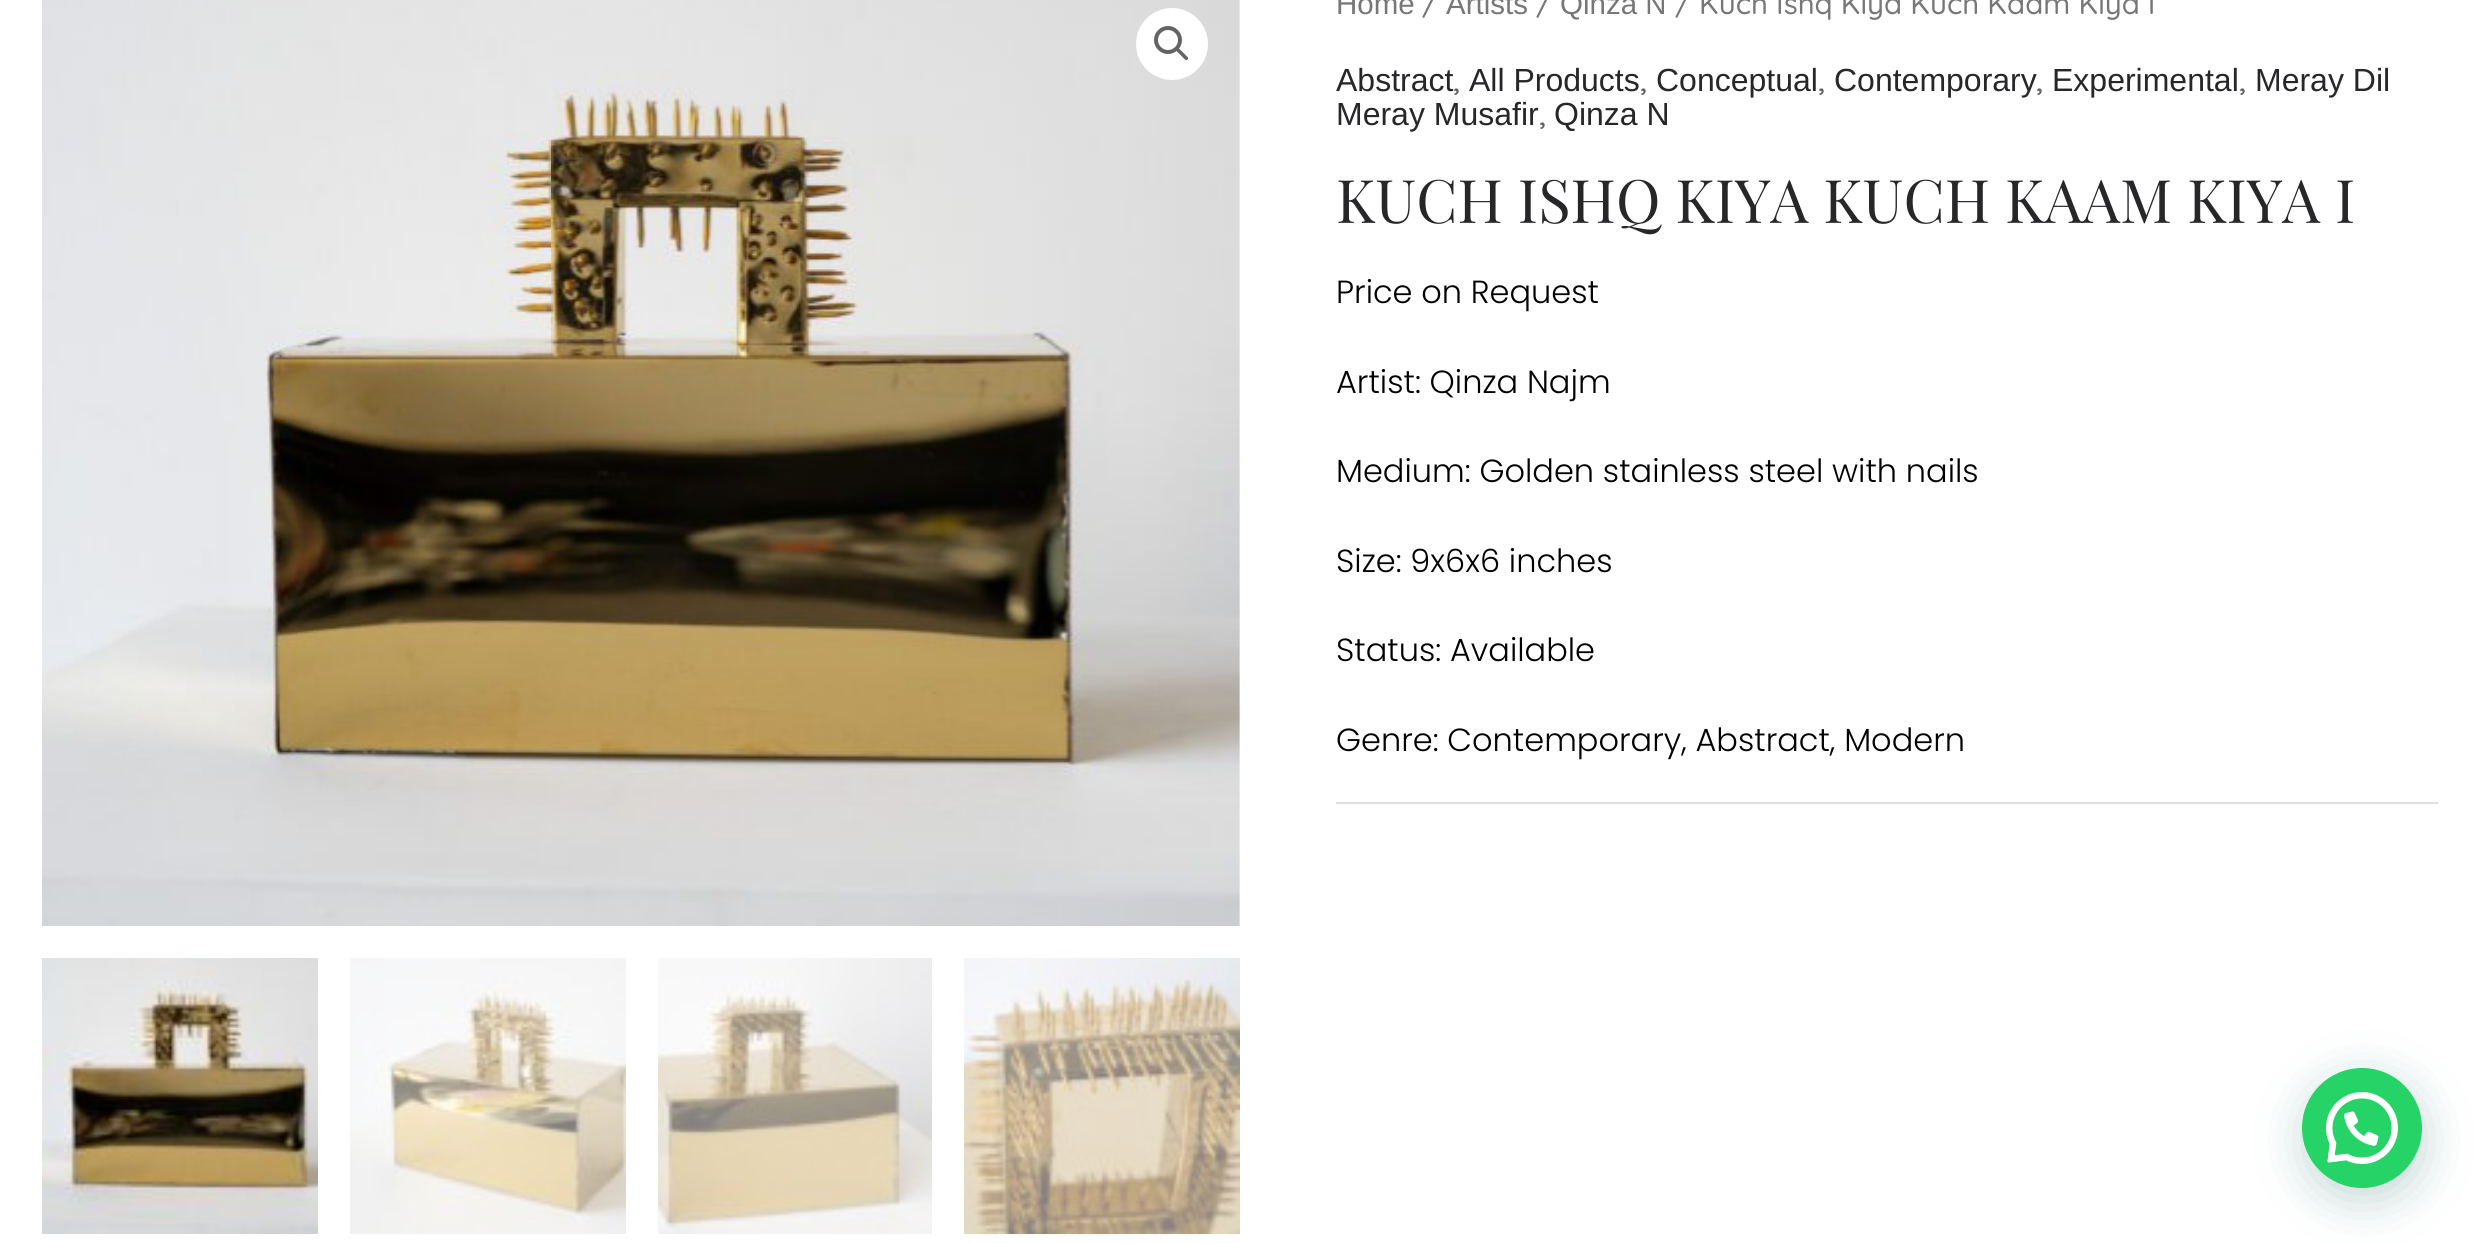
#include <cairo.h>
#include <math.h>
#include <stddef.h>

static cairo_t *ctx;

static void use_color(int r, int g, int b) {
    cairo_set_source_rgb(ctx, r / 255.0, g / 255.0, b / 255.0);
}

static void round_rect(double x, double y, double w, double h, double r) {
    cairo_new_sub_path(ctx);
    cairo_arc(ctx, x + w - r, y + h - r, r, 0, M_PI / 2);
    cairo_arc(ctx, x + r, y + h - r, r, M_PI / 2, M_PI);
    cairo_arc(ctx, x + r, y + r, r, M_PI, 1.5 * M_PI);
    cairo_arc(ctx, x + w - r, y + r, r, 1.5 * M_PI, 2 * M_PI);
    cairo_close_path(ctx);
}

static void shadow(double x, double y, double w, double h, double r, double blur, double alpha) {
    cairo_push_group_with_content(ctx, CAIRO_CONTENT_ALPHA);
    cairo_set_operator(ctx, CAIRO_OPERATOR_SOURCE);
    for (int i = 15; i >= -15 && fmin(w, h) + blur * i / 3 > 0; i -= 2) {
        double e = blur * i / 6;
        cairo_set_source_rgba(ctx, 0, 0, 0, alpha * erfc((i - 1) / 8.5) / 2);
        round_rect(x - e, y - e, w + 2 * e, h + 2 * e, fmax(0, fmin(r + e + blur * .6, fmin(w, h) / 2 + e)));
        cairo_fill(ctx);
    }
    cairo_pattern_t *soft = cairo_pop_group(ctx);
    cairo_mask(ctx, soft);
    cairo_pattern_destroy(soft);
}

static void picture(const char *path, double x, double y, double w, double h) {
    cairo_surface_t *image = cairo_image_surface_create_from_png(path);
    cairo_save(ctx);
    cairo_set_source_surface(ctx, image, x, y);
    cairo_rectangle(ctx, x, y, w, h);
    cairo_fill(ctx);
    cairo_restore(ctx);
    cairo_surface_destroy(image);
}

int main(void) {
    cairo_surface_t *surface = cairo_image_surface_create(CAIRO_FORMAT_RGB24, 2478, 1243);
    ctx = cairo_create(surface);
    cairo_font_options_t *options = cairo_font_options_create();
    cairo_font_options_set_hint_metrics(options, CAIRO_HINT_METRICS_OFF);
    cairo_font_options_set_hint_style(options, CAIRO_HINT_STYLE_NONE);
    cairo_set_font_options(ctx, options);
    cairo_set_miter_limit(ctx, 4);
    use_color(255, 255, 255);
    cairo_paint(ctx);
    picture("img1.png", 42, 0, 1198, 926);
    use_color(255, 255, 255);
    cairo_arc(ctx, 1172, 44, 36, 0, 2 * M_PI);
    cairo_fill(ctx);
    cairo_arc(ctx, 1168, 40, 12, 0, 2 * M_PI);
    use_color(100, 100, 103);
    cairo_set_line_width(ctx, 4);
    cairo_stroke(ctx);
    cairo_new_path(ctx);
    cairo_move_to(ctx, 1176.5, 48.5);
    cairo_curve_to(ctx, 1177, 47.5, 1178.5, 47.5, 1179, 48.5);
    cairo_line_to(ctx, 1187.5, 57);
    cairo_curve_to(ctx, 1188.5, 57.5, 1188.5, 59, 1187.5, 59.5);
    cairo_curve_to(ctx, 1187, 60.5, 1185.5, 60.5, 1185, 59.5);
    cairo_line_to(ctx, 1176.5, 51);
    cairo_curve_to(ctx, 1175.5, 50.5, 1175.5, 49, 1176.5, 48.5);
    cairo_close_path(ctx);
    cairo_fill(ctx);
    picture("img2.png", 42, 958, 276, 276);
    picture("img3.png", 350, 958, 276, 276);
    picture("img4.png", 658, 958, 274, 276);
    picture("img5.png", 964, 958, 276, 276);
    cairo_select_font_face(ctx, "Liberation Sans", CAIRO_FONT_SLANT_NORMAL, CAIRO_FONT_WEIGHT_NORMAL);
    cairo_set_font_size(ctx, 29.5);
    use_color(119, 119, 119);
    cairo_move_to(ctx, 1336, 14);
    cairo_show_text(ctx, "Home");
    cairo_select_font_face(ctx, "Quicksand Medium", CAIRO_FONT_SLANT_NORMAL, CAIRO_FONT_WEIGHT_NORMAL);
    cairo_move_to(ctx, 1422, 14);
    cairo_show_text(ctx, "/");
    cairo_select_font_face(ctx, "Liberation Sans", CAIRO_FONT_SLANT_NORMAL, CAIRO_FONT_WEIGHT_NORMAL);
    cairo_move_to(ctx, 1446, 14);
    cairo_show_text(ctx, "Artists");
    cairo_select_font_face(ctx, "Quicksand Medium", CAIRO_FONT_SLANT_NORMAL, CAIRO_FONT_WEIGHT_NORMAL);
    cairo_move_to(ctx, 1536, 14);
    cairo_show_text(ctx, "/");
    cairo_select_font_face(ctx, "Liberation Sans", CAIRO_FONT_SLANT_NORMAL, CAIRO_FONT_WEIGHT_NORMAL);
    cairo_move_to(ctx, 1560, 14);
    cairo_show_text(ctx, "Qinza N");
    cairo_select_font_face(ctx, "Quicksand Medium", CAIRO_FONT_SLANT_NORMAL, CAIRO_FONT_WEIGHT_NORMAL);
    cairo_move_to(ctx, 1675, 14);
    cairo_show_text(ctx, "/ Kuch Ishq Kiya Kuch Kaam Kiya I");
    cairo_select_font_face(ctx, "Liberation Sans", CAIRO_FONT_SLANT_NORMAL, CAIRO_FONT_WEIGHT_NORMAL);
    cairo_set_font_size(ctx, 32);
    use_color(39, 39, 42);
    cairo_move_to(ctx, 1336, 91);
    cairo_show_text(ctx, "Abstract");
    cairo_select_font_face(ctx, "Quicksand Medium", CAIRO_FONT_SLANT_NORMAL, CAIRO_FONT_WEIGHT_NORMAL);
    use_color(100, 100, 103);
    cairo_move_to(ctx, 1453, 91);
    cairo_show_text(ctx, ",");
    cairo_select_font_face(ctx, "Liberation Sans", CAIRO_FONT_SLANT_NORMAL, CAIRO_FONT_WEIGHT_NORMAL);
    use_color(39, 39, 42);
    cairo_move_to(ctx, 1469, 91);
    cairo_show_text(ctx, "All Products");
    cairo_select_font_face(ctx, "Quicksand Medium", CAIRO_FONT_SLANT_NORMAL, CAIRO_FONT_WEIGHT_NORMAL);
    use_color(100, 100, 103);
    cairo_move_to(ctx, 1640, 91);
    cairo_show_text(ctx, ",");
    cairo_select_font_face(ctx, "Liberation Sans", CAIRO_FONT_SLANT_NORMAL, CAIRO_FONT_WEIGHT_NORMAL);
    use_color(39, 39, 42);
    cairo_move_to(ctx, 1656, 91);
    cairo_show_text(ctx, "Conceptual");
    cairo_select_font_face(ctx, "Quicksand Medium", CAIRO_FONT_SLANT_NORMAL, CAIRO_FONT_WEIGHT_NORMAL);
    use_color(100, 100, 103);
    cairo_move_to(ctx, 1818, 91);
    cairo_show_text(ctx, ",");
    cairo_select_font_face(ctx, "Liberation Sans", CAIRO_FONT_SLANT_NORMAL, CAIRO_FONT_WEIGHT_NORMAL);
    use_color(39, 39, 42);
    cairo_move_to(ctx, 1834, 91);
    cairo_show_text(ctx, "Contemporary");
    cairo_select_font_face(ctx, "Quicksand Medium", CAIRO_FONT_SLANT_NORMAL, CAIRO_FONT_WEIGHT_NORMAL);
    use_color(100, 100, 103);
    cairo_move_to(ctx, 2036, 91);
    cairo_show_text(ctx, ",");
    cairo_select_font_face(ctx, "Liberation Sans", CAIRO_FONT_SLANT_NORMAL, CAIRO_FONT_WEIGHT_NORMAL);
    use_color(39, 39, 42);
    cairo_move_to(ctx, 2052, 91);
    cairo_show_text(ctx, "Experimental");
    cairo_select_font_face(ctx, "Quicksand Medium", CAIRO_FONT_SLANT_NORMAL, CAIRO_FONT_WEIGHT_NORMAL);
    use_color(100, 100, 103);
    cairo_move_to(ctx, 2239, 91);
    cairo_show_text(ctx, ",");
    cairo_select_font_face(ctx, "Liberation Sans", CAIRO_FONT_SLANT_NORMAL, CAIRO_FONT_WEIGHT_NORMAL);
    use_color(39, 39, 42);
    cairo_move_to(ctx, 2255, 91);
    cairo_show_text(ctx, "Meray Dil");
    cairo_move_to(ctx, 1336, 125);
    cairo_show_text(ctx, "Meray Musafir");
    cairo_select_font_face(ctx, "Quicksand Medium", CAIRO_FONT_SLANT_NORMAL, CAIRO_FONT_WEIGHT_NORMAL);
    use_color(100, 100, 103);
    cairo_move_to(ctx, 1539, 125);
    cairo_show_text(ctx, ",");
    cairo_select_font_face(ctx, "Liberation Sans", CAIRO_FONT_SLANT_NORMAL, CAIRO_FONT_WEIGHT_NORMAL);
    use_color(39, 39, 42);
    cairo_move_to(ctx, 1554, 125);
    cairo_show_text(ctx, "Qinza N");
    cairo_select_font_face(ctx, "Playfair Display", CAIRO_FONT_SLANT_NORMAL, CAIRO_FONT_WEIGHT_NORMAL);
    cairo_set_font_size(ctx, 60);
    cairo_move_to(ctx, 1336, 223);
    cairo_show_text(ctx, "KUCH ISHQ KIYA KUCH KAAM KIYA I");
    cairo_select_font_face(ctx, "Poppins Light", CAIRO_FONT_SLANT_NORMAL, CAIRO_FONT_WEIGHT_NORMAL);
    cairo_set_font_size(ctx, 32);
    use_color(0, 0, 0);
    cairo_move_to(ctx, 1336, 303);
    cairo_show_text(ctx, "Price on Request");
    cairo_move_to(ctx, 1336, 393);
    cairo_show_text(ctx, "Artist: Qinza Najm");
    cairo_move_to(ctx, 1336, 482);
    cairo_show_text(ctx, "Medium: Golden stainless steel with nails");
    cairo_move_to(ctx, 1336, 572);
    cairo_show_text(ctx, "Size: 9x6x6 inches");
    cairo_move_to(ctx, 1336, 661);
    cairo_show_text(ctx, "Status: Available");
    cairo_move_to(ctx, 1336, 751);
    cairo_show_text(ctx, "Genre: Contemporary, Abstract, Modern");
    use_color(221, 221, 221);
    cairo_rectangle(ctx, 1336, 802, 1102, 2);
    cairo_fill(ctx);
    use_color(7, 94, 84);
    shadow(2304, 1080, 120, 120, 60, 24, 0.24);
    use_color(37, 211, 102);
    cairo_arc(ctx, 2362, 1128, 60, 0, 2 * M_PI);
    cairo_fill(ctx);
    picture("img6.png", 2326, 1092, 72, 72);
    cairo_surface_write_to_png(surface, "result.png");
    cairo_font_options_destroy(options);
    cairo_destroy(ctx);
    cairo_surface_destroy(surface);
    return 0;
}
